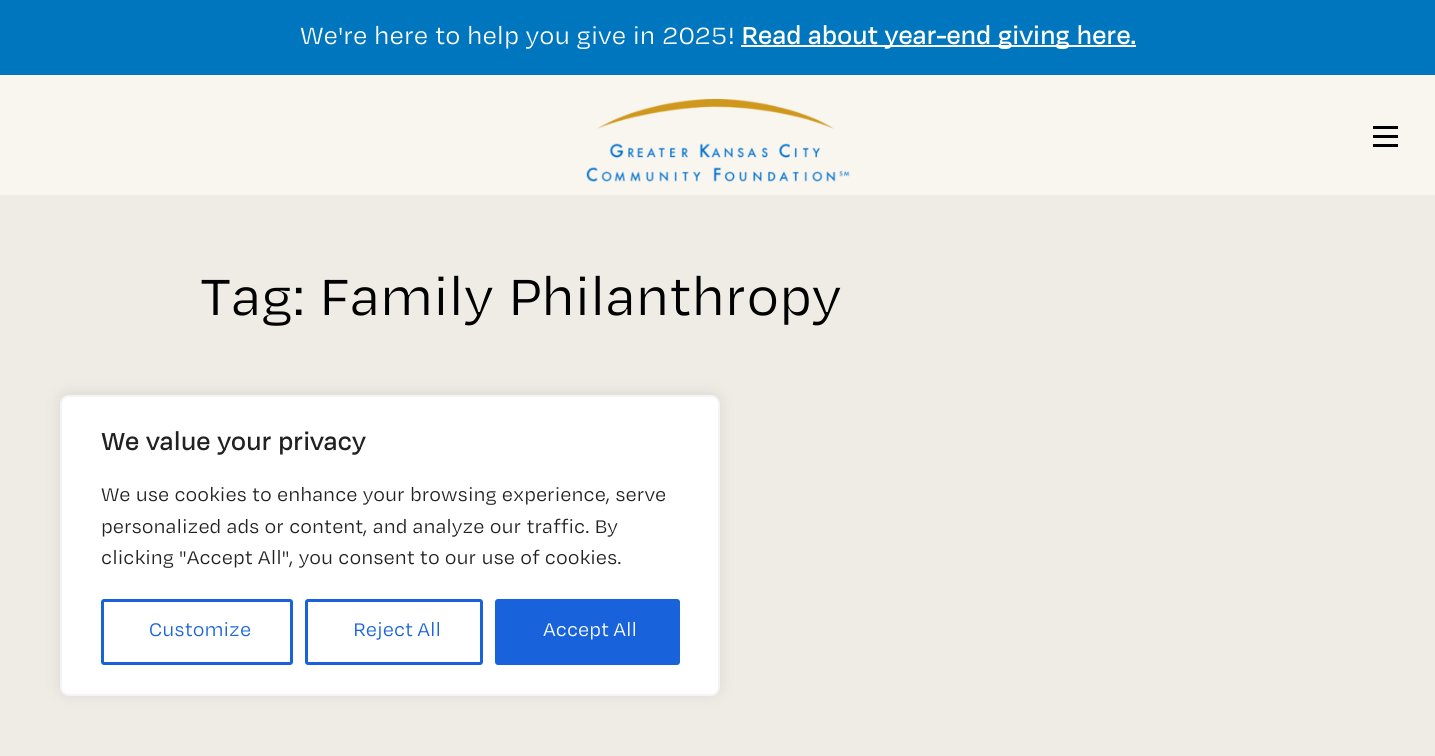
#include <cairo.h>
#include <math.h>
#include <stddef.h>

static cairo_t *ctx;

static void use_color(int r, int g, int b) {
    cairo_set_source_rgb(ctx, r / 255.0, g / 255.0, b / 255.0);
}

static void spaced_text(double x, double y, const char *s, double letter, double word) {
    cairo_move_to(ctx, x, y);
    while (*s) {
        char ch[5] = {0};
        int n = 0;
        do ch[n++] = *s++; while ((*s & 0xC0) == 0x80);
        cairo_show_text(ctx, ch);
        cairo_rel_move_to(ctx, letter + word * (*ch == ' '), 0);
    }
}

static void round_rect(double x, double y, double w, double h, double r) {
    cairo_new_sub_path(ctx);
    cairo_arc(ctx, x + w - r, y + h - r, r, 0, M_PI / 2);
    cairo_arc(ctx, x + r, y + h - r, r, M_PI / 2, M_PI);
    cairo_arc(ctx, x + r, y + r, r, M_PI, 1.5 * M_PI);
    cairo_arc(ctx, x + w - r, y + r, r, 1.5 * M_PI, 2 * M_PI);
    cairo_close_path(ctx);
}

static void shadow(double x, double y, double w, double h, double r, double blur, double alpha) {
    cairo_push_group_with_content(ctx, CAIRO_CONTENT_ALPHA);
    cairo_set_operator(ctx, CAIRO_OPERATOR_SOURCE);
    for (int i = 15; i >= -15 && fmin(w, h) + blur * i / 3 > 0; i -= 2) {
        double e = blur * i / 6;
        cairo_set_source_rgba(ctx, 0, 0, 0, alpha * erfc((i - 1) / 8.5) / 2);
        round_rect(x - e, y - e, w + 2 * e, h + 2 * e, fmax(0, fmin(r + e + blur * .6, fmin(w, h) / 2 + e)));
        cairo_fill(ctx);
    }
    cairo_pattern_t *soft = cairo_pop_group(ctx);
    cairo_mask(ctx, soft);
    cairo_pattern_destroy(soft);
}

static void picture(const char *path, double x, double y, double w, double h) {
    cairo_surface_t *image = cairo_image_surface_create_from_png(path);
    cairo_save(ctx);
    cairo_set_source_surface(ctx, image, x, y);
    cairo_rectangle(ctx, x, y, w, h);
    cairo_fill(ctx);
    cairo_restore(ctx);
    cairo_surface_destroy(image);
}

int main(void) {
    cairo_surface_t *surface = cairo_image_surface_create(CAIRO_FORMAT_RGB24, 1435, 756);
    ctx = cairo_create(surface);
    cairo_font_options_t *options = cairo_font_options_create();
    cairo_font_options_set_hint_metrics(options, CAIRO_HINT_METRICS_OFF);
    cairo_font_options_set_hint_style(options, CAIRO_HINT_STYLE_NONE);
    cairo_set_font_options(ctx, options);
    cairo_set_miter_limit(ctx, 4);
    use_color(239, 236, 229);
    cairo_paint(ctx);
    use_color(0, 118, 190);
    cairo_rectangle(ctx, 0, 0, 1435, 75);
    cairo_fill(ctx);
    cairo_select_font_face(ctx, "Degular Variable", CAIRO_FONT_SLANT_NORMAL, CAIRO_FONT_WEIGHT_NORMAL);
    cairo_set_font_size(ctx, 27);
    use_color(255, 255, 255);
    cairo_move_to(ctx, 300, 44);
    cairo_show_text(ctx, "We're here to help you give in 2025!");
    cairo_rectangle(ctx, 741, 45, 395, 2);
    cairo_fill(ctx);
    cairo_select_font_face(ctx, "Degular Variable", CAIRO_FONT_SLANT_NORMAL, CAIRO_FONT_WEIGHT_BOLD);
    cairo_move_to(ctx, 741, 44);
    cairo_show_text(ctx, "Read about year-end giving here.");
    use_color(249, 246, 240);
    cairo_rectangle(ctx, 0, 75, 1435, 120);
    cairo_fill(ctx);
    picture("img1.png", 586, 99, 264, 83);
    use_color(0, 0, 0);
    cairo_rectangle(ctx, 1373, 126, 25, 3);
    cairo_fill(ctx);
    cairo_rectangle(ctx, 1373, 135, 25, 3);
    cairo_fill(ctx);
    cairo_rectangle(ctx, 1373, 144, 25, 3);
    cairo_fill(ctx);
    cairo_select_font_face(ctx, "Degular Variable", CAIRO_FONT_SLANT_NORMAL, CAIRO_FONT_WEIGHT_NORMAL);
    cairo_set_font_size(ctx, 58.5);
    cairo_move_to(ctx, 200, 315);
    cairo_show_text(ctx, "Tag: Family Philanthropy");
    use_color(172, 171, 171);
    shadow(60, 393, 660, 302, 9, 7.5, 0.3);
    use_color(255, 255, 255);
    round_rect(61, 396, 658, 299, 8);
    cairo_fill_preserve(ctx);
    use_color(244, 244, 244);
    cairo_stroke(ctx);
    cairo_select_font_face(ctx, "Degular Variable", CAIRO_FONT_SLANT_NORMAL, CAIRO_FONT_WEIGHT_BOLD);
    cairo_set_font_size(ctx, 27);
    use_color(33, 33, 33);
    cairo_move_to(ctx, 101, 450);
    cairo_show_text(ctx, "We value your privacy");
    cairo_select_font_face(ctx, "Degular Variable", CAIRO_FONT_SLANT_NORMAL, CAIRO_FONT_WEIGHT_NORMAL);
    cairo_set_font_size(ctx, 21);
    cairo_move_to(ctx, 101, 501);
    cairo_show_text(ctx, "We use cookies to enhance your browsing experience, serve");
    cairo_move_to(ctx, 101, 533);
    cairo_show_text(ctx, "personalized ads or content, and analyze our traffic. By");
    cairo_move_to(ctx, 101, 564);
    cairo_show_text(ctx, "clicking \"Accept All\", you consent to our use of cookies.");
    round_rect(102.5, 600.5, 189, 63, 1.5);
    use_color(24, 99, 220);
    cairo_set_line_width(ctx, 3);
    cairo_stroke(ctx);
    cairo_move_to(ctx, 149, 636);
    cairo_show_text(ctx, "Customize");
    round_rect(306.5, 600.5, 175, 63, 1.5);
    cairo_stroke(ctx);
    spaced_text(353, 636, "Reject All", 0, -1);
    round_rect(496.5, 600.5, 182, 63, 1.5);
    cairo_fill_preserve(ctx);
    cairo_stroke(ctx);
    use_color(255, 255, 255);
    spaced_text(543, 636, "Accept All", 0, -1);
    cairo_surface_write_to_png(surface, "result.png");
    cairo_font_options_destroy(options);
    cairo_destroy(ctx);
    cairo_surface_destroy(surface);
    return 0;
}
